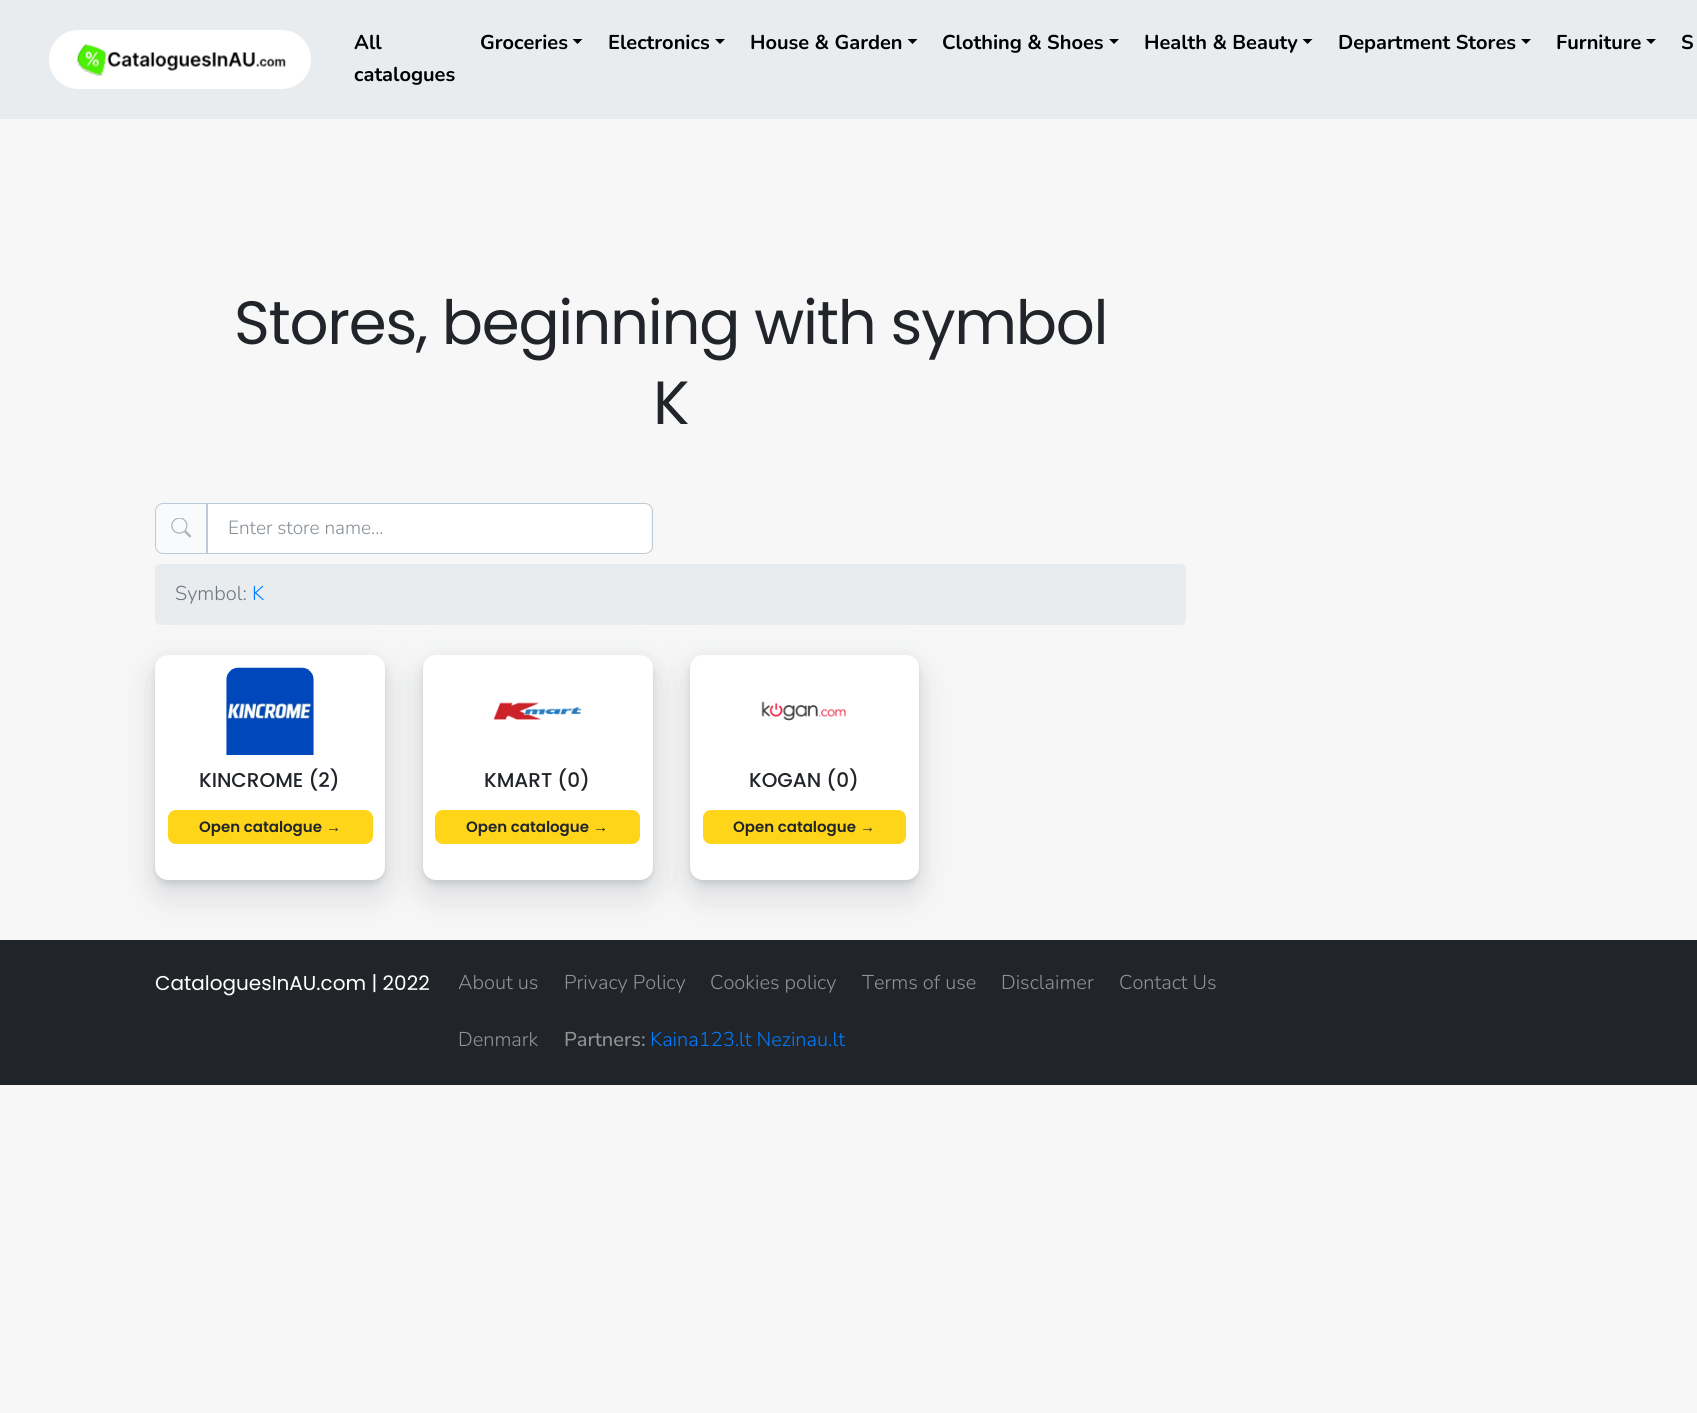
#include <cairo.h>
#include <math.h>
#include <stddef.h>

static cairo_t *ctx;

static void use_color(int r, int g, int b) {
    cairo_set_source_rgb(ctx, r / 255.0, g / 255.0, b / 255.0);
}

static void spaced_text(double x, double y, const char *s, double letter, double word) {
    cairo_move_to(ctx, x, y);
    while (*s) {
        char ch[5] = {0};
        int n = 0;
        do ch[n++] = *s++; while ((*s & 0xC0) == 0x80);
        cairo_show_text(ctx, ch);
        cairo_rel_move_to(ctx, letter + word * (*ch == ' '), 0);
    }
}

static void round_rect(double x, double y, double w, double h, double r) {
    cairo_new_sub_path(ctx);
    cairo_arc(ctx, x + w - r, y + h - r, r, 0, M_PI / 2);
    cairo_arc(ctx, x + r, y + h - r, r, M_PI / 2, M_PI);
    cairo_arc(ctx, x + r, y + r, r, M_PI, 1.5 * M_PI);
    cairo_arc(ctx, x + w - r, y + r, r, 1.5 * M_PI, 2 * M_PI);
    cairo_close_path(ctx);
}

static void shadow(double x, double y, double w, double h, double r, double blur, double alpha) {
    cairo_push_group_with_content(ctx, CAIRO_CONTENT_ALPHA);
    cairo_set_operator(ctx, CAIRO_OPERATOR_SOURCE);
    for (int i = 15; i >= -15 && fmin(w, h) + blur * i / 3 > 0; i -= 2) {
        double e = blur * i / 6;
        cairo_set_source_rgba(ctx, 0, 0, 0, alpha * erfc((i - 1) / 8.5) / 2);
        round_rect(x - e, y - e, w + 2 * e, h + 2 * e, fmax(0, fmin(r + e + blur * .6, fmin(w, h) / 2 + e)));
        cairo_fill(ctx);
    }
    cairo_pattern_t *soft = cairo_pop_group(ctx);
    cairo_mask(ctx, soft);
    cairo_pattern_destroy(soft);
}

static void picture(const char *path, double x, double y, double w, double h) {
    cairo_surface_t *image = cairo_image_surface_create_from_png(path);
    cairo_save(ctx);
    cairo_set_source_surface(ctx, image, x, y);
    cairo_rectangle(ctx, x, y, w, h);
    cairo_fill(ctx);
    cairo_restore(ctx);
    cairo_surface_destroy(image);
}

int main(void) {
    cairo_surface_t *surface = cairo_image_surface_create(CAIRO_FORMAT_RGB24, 1697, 1413);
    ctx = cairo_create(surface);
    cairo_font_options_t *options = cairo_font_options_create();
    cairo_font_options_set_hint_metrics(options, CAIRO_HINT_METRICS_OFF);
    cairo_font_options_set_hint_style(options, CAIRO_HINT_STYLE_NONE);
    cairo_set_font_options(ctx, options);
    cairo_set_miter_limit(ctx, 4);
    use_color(247, 247, 247);
    cairo_paint(ctx);
    use_color(233, 236, 239);
    cairo_rectangle(ctx, 0, 0, 1697, 119);
    cairo_fill(ctx);
    use_color(255, 255, 255);
    round_rect(49, 30, 262, 59, 29.5);
    cairo_fill(ctx);
    picture("img1.png", 76, 44, 210, 32);
    cairo_select_font_face(ctx, "Nunito", CAIRO_FONT_SLANT_NORMAL, CAIRO_FONT_WEIGHT_BOLD);
    cairo_set_font_size(ctx, 20);
    use_color(0, 0, 0);
    cairo_move_to(ctx, 354, 49);
    cairo_show_text(ctx, "All");
    cairo_move_to(ctx, 354, 81);
    cairo_show_text(ctx, "catalogues");
    cairo_move_to(ctx, 480, 49);
    cairo_show_text(ctx, "Groceries");
    cairo_new_path(ctx);
    cairo_move_to(ctx, 572.5, 39);
    cairo_line_to(ctx, 582.5, 39);
    cairo_line_to(ctx, 577.5, 44);
    cairo_close_path(ctx);
    cairo_fill(ctx);
    cairo_move_to(ctx, 608, 49);
    cairo_show_text(ctx, "Electronics");
    cairo_new_path(ctx);
    cairo_move_to(ctx, 715, 39);
    cairo_line_to(ctx, 725, 39);
    cairo_line_to(ctx, 720, 44);
    cairo_close_path(ctx);
    cairo_fill(ctx);
    cairo_move_to(ctx, 750, 49);
    cairo_show_text(ctx, "House & Garden");
    cairo_new_path(ctx);
    cairo_move_to(ctx, 907.5, 39);
    cairo_line_to(ctx, 917.5, 39);
    cairo_line_to(ctx, 912.5, 44);
    cairo_close_path(ctx);
    cairo_fill(ctx);
    cairo_move_to(ctx, 942, 49);
    cairo_show_text(ctx, "Clothing & Shoes");
    cairo_new_path(ctx);
    cairo_move_to(ctx, 1109, 39);
    cairo_line_to(ctx, 1119, 39);
    cairo_line_to(ctx, 1114, 44);
    cairo_close_path(ctx);
    cairo_fill(ctx);
    cairo_move_to(ctx, 1144, 49);
    cairo_show_text(ctx, "Health & Beauty");
    cairo_new_path(ctx);
    cairo_move_to(ctx, 1302.5, 39);
    cairo_line_to(ctx, 1312.5, 39);
    cairo_line_to(ctx, 1307.5, 44);
    cairo_close_path(ctx);
    cairo_fill(ctx);
    cairo_move_to(ctx, 1338, 49);
    cairo_show_text(ctx, "Department Stores");
    cairo_new_path(ctx);
    cairo_move_to(ctx, 1521, 39);
    cairo_line_to(ctx, 1531, 39);
    cairo_line_to(ctx, 1526, 44);
    cairo_close_path(ctx);
    cairo_fill(ctx);
    cairo_move_to(ctx, 1556, 49);
    cairo_show_text(ctx, "Furniture");
    cairo_new_path(ctx);
    cairo_move_to(ctx, 1646, 39);
    cairo_line_to(ctx, 1656, 39);
    cairo_line_to(ctx, 1651, 44);
    cairo_close_path(ctx);
    cairo_fill(ctx);
    cairo_move_to(ctx, 1681, 49);
    cairo_show_text(ctx, "S");
    cairo_select_font_face(ctx, "Poppins", CAIRO_FONT_SLANT_NORMAL, CAIRO_FONT_WEIGHT_NORMAL);
    cairo_set_font_size(ctx, 61);
    use_color(33, 37, 41);
    spaced_text(234, 344, "Stores, beginning with symbol", -1.25, 0);
    spaced_text(653, 424, "K", -1.25, 0);
    use_color(249, 250, 251);
    cairo_new_path(ctx);
    cairo_move_to(ctx, 163, 503.5);
    cairo_line_to(ctx, 207.5, 503.5);
    cairo_line_to(ctx, 207.5, 553.5);
    cairo_line_to(ctx, 163, 553.5);
    cairo_curve_to(ctx, 159, 553.5, 155.5, 550, 155.5, 546);
    cairo_line_to(ctx, 155.5, 511);
    cairo_curve_to(ctx, 155.5, 507, 159, 503.5, 163, 503.5);
    cairo_close_path(ctx);
    cairo_fill_preserve(ctx);
    use_color(190, 202, 214);
    cairo_set_line_width(ctx, 1);
    cairo_stroke(ctx);
    picture("img2.png", 171, 518, 20, 20);
    use_color(255, 255, 255);
    cairo_new_path(ctx);
    cairo_move_to(ctx, 208, 504);
    cairo_line_to(ctx, 645, 504);
    cairo_curve_to(ctx, 648.5, 504, 651, 506.5, 651, 510);
    cairo_line_to(ctx, 651, 547);
    cairo_curve_to(ctx, 651, 550.5, 648.5, 553, 645, 553);
    cairo_line_to(ctx, 208, 553);
    cairo_close_path(ctx);
    cairo_fill(ctx);
    cairo_new_path(ctx);
    cairo_move_to(ctx, 206.5, 503.5);
    cairo_line_to(ctx, 645, 503.5);
    cairo_curve_to(ctx, 649, 503.5, 652.5, 507, 652.5, 511);
    cairo_line_to(ctx, 652.5, 546);
    cairo_curve_to(ctx, 652.5, 550, 649, 553.5, 645, 553.5);
    cairo_line_to(ctx, 206.5, 553.5);
    cairo_close_path(ctx);
    use_color(190, 202, 214);
    cairo_stroke(ctx);
    cairo_select_font_face(ctx, "Nunito Light", CAIRO_FONT_SLANT_NORMAL, CAIRO_FONT_WEIGHT_NORMAL);
    cairo_set_font_size(ctx, 19);
    use_color(134, 142, 150);
    cairo_move_to(ctx, 228, 534);
    cairo_show_text(ctx, "Enter store name...");
    use_color(233, 236, 239);
    round_rect(155, 564, 1031, 61, 5);
    cairo_fill(ctx);
    cairo_set_font_size(ctx, 20);
    use_color(108, 117, 125);
    cairo_move_to(ctx, 175, 600);
    cairo_show_text(ctx, "Symbol:");
    use_color(0, 123, 255);
    cairo_move_to(ctx, 252, 600);
    cairo_show_text(ctx, "K");
    use_color(90, 97, 105);
    shadow(155, 658, 230, 225, 13, 2, 0.1);
    shadow(155, 660, 230, 225, 13, 5.5, 0.12);
    shadow(155, 674, 230, 225, 13, 14, 0.1);
    shadow(155, 665, 230, 225, 13, 22, 0.1);
    use_color(255, 255, 255);
    round_rect(155, 655, 230, 225, 13);
    cairo_fill(ctx);
    picture("img3.png", 226, 667, 88, 88);
    cairo_select_font_face(ctx, "Poppins Medium", CAIRO_FONT_SLANT_NORMAL, CAIRO_FONT_WEIGHT_NORMAL);
    use_color(33, 37, 41);
    cairo_move_to(ctx, 199, 787);
    cairo_show_text(ctx, "KINCROME (2)");
    use_color(255, 213, 26);
    round_rect(168.5, 810.5, 204, 33, 7.5);
    cairo_fill_preserve(ctx);
    cairo_stroke(ctx);
    cairo_select_font_face(ctx, "Poppins SemiBold", CAIRO_FONT_SLANT_NORMAL, CAIRO_FONT_WEIGHT_NORMAL);
    cairo_set_font_size(ctx, 15);
    use_color(33, 37, 41);
    cairo_move_to(ctx, 199, 832);
    cairo_show_text(ctx, "Open catalogue");
    cairo_select_font_face(ctx, "Liberation Sans", CAIRO_FONT_SLANT_NORMAL, CAIRO_FONT_WEIGHT_BOLD);
    cairo_move_to(ctx, 326, 832);
    cairo_show_text(ctx, "→");
    use_color(90, 97, 105);
    shadow(423, 658, 230, 225, 13, 2, 0.1);
    shadow(423, 660, 230, 225, 13, 5.5, 0.12);
    shadow(423, 674, 230, 225, 13, 14, 0.1);
    shadow(423, 665, 230, 225, 13, 22, 0.1);
    use_color(255, 255, 255);
    round_rect(423, 655, 230, 225, 13);
    cairo_fill(ctx);
    picture("img4.png", 493, 702, 89, 18);
    cairo_select_font_face(ctx, "Poppins Medium", CAIRO_FONT_SLANT_NORMAL, CAIRO_FONT_WEIGHT_NORMAL);
    cairo_set_font_size(ctx, 20);
    use_color(33, 37, 41);
    cairo_move_to(ctx, 484, 787);
    cairo_show_text(ctx, "KMART (0)");
    use_color(255, 213, 26);
    round_rect(435.5, 810.5, 204, 33, 7.5);
    cairo_fill_preserve(ctx);
    cairo_stroke(ctx);
    cairo_select_font_face(ctx, "Poppins SemiBold", CAIRO_FONT_SLANT_NORMAL, CAIRO_FONT_WEIGHT_NORMAL);
    cairo_set_font_size(ctx, 15);
    use_color(33, 37, 41);
    cairo_move_to(ctx, 466, 832);
    cairo_show_text(ctx, "Open catalogue");
    cairo_select_font_face(ctx, "Liberation Sans", CAIRO_FONT_SLANT_NORMAL, CAIRO_FONT_WEIGHT_BOLD);
    cairo_move_to(ctx, 593, 832);
    cairo_show_text(ctx, "→");
    use_color(90, 97, 105);
    shadow(690, 658, 229, 225, 13, 2, 0.1);
    shadow(690, 660, 229, 225, 13, 5.5, 0.12);
    shadow(690, 674, 229, 225, 13, 14, 0.1);
    shadow(690, 665, 229, 225, 13, 22, 0.1);
    use_color(255, 255, 255);
    round_rect(690, 655, 229, 225, 13);
    cairo_fill(ctx);
    picture("img5.png", 761, 701, 85, 20);
    cairo_select_font_face(ctx, "Poppins Medium", CAIRO_FONT_SLANT_NORMAL, CAIRO_FONT_WEIGHT_NORMAL);
    cairo_set_font_size(ctx, 20);
    use_color(33, 37, 41);
    cairo_move_to(ctx, 749, 787);
    cairo_show_text(ctx, "KOGAN (0)");
    use_color(255, 213, 26);
    round_rect(703.5, 810.5, 202, 33, 7.5);
    cairo_fill_preserve(ctx);
    cairo_stroke(ctx);
    cairo_select_font_face(ctx, "Poppins SemiBold", CAIRO_FONT_SLANT_NORMAL, CAIRO_FONT_WEIGHT_NORMAL);
    cairo_set_font_size(ctx, 15);
    use_color(33, 37, 41);
    cairo_move_to(ctx, 733, 832);
    cairo_show_text(ctx, "Open catalogue");
    cairo_select_font_face(ctx, "Liberation Sans", CAIRO_FONT_SLANT_NORMAL, CAIRO_FONT_WEIGHT_BOLD);
    cairo_move_to(ctx, 860, 832);
    cairo_show_text(ctx, "→");
    cairo_rectangle(ctx, 0, 940, 1697, 145);
    cairo_fill(ctx);
    cairo_select_font_face(ctx, "Poppins", CAIRO_FONT_SLANT_NORMAL, CAIRO_FONT_WEIGHT_NORMAL);
    cairo_set_font_size(ctx, 20);
    use_color(255, 255, 255);
    cairo_move_to(ctx, 155, 990);
    cairo_show_text(ctx, "CataloguesInAU.com | 2022");
    cairo_select_font_face(ctx, "Nunito Light", CAIRO_FONT_SLANT_NORMAL, CAIRO_FONT_WEIGHT_NORMAL);
    use_color(144, 146, 148);
    cairo_move_to(ctx, 458, 989);
    cairo_show_text(ctx, "About us");
    cairo_move_to(ctx, 564, 989);
    cairo_show_text(ctx, "Privacy Policy");
    cairo_move_to(ctx, 710, 989);
    cairo_show_text(ctx, "Cookies policy");
    cairo_move_to(ctx, 862, 989);
    cairo_show_text(ctx, "Terms of use");
    cairo_move_to(ctx, 1001, 989);
    cairo_show_text(ctx, "Disclaimer");
    cairo_move_to(ctx, 1119, 989);
    cairo_show_text(ctx, "Contact Us");
    cairo_move_to(ctx, 458, 1046);
    cairo_show_text(ctx, "Denmark");
    cairo_select_font_face(ctx, "Nunito Medium", CAIRO_FONT_SLANT_NORMAL, CAIRO_FONT_WEIGHT_NORMAL);
    cairo_move_to(ctx, 564, 1046);
    cairo_show_text(ctx, "Partners:");
    cairo_select_font_face(ctx, "Nunito Light", CAIRO_FONT_SLANT_NORMAL, CAIRO_FONT_WEIGHT_NORMAL);
    use_color(0, 123, 255);
    cairo_move_to(ctx, 650, 1046);
    cairo_show_text(ctx, "Kaina123.lt Nezinau.lt");
    cairo_surface_write_to_png(surface, "result.png");
    cairo_font_options_destroy(options);
    cairo_destroy(ctx);
    cairo_surface_destroy(surface);
    return 0;
}
